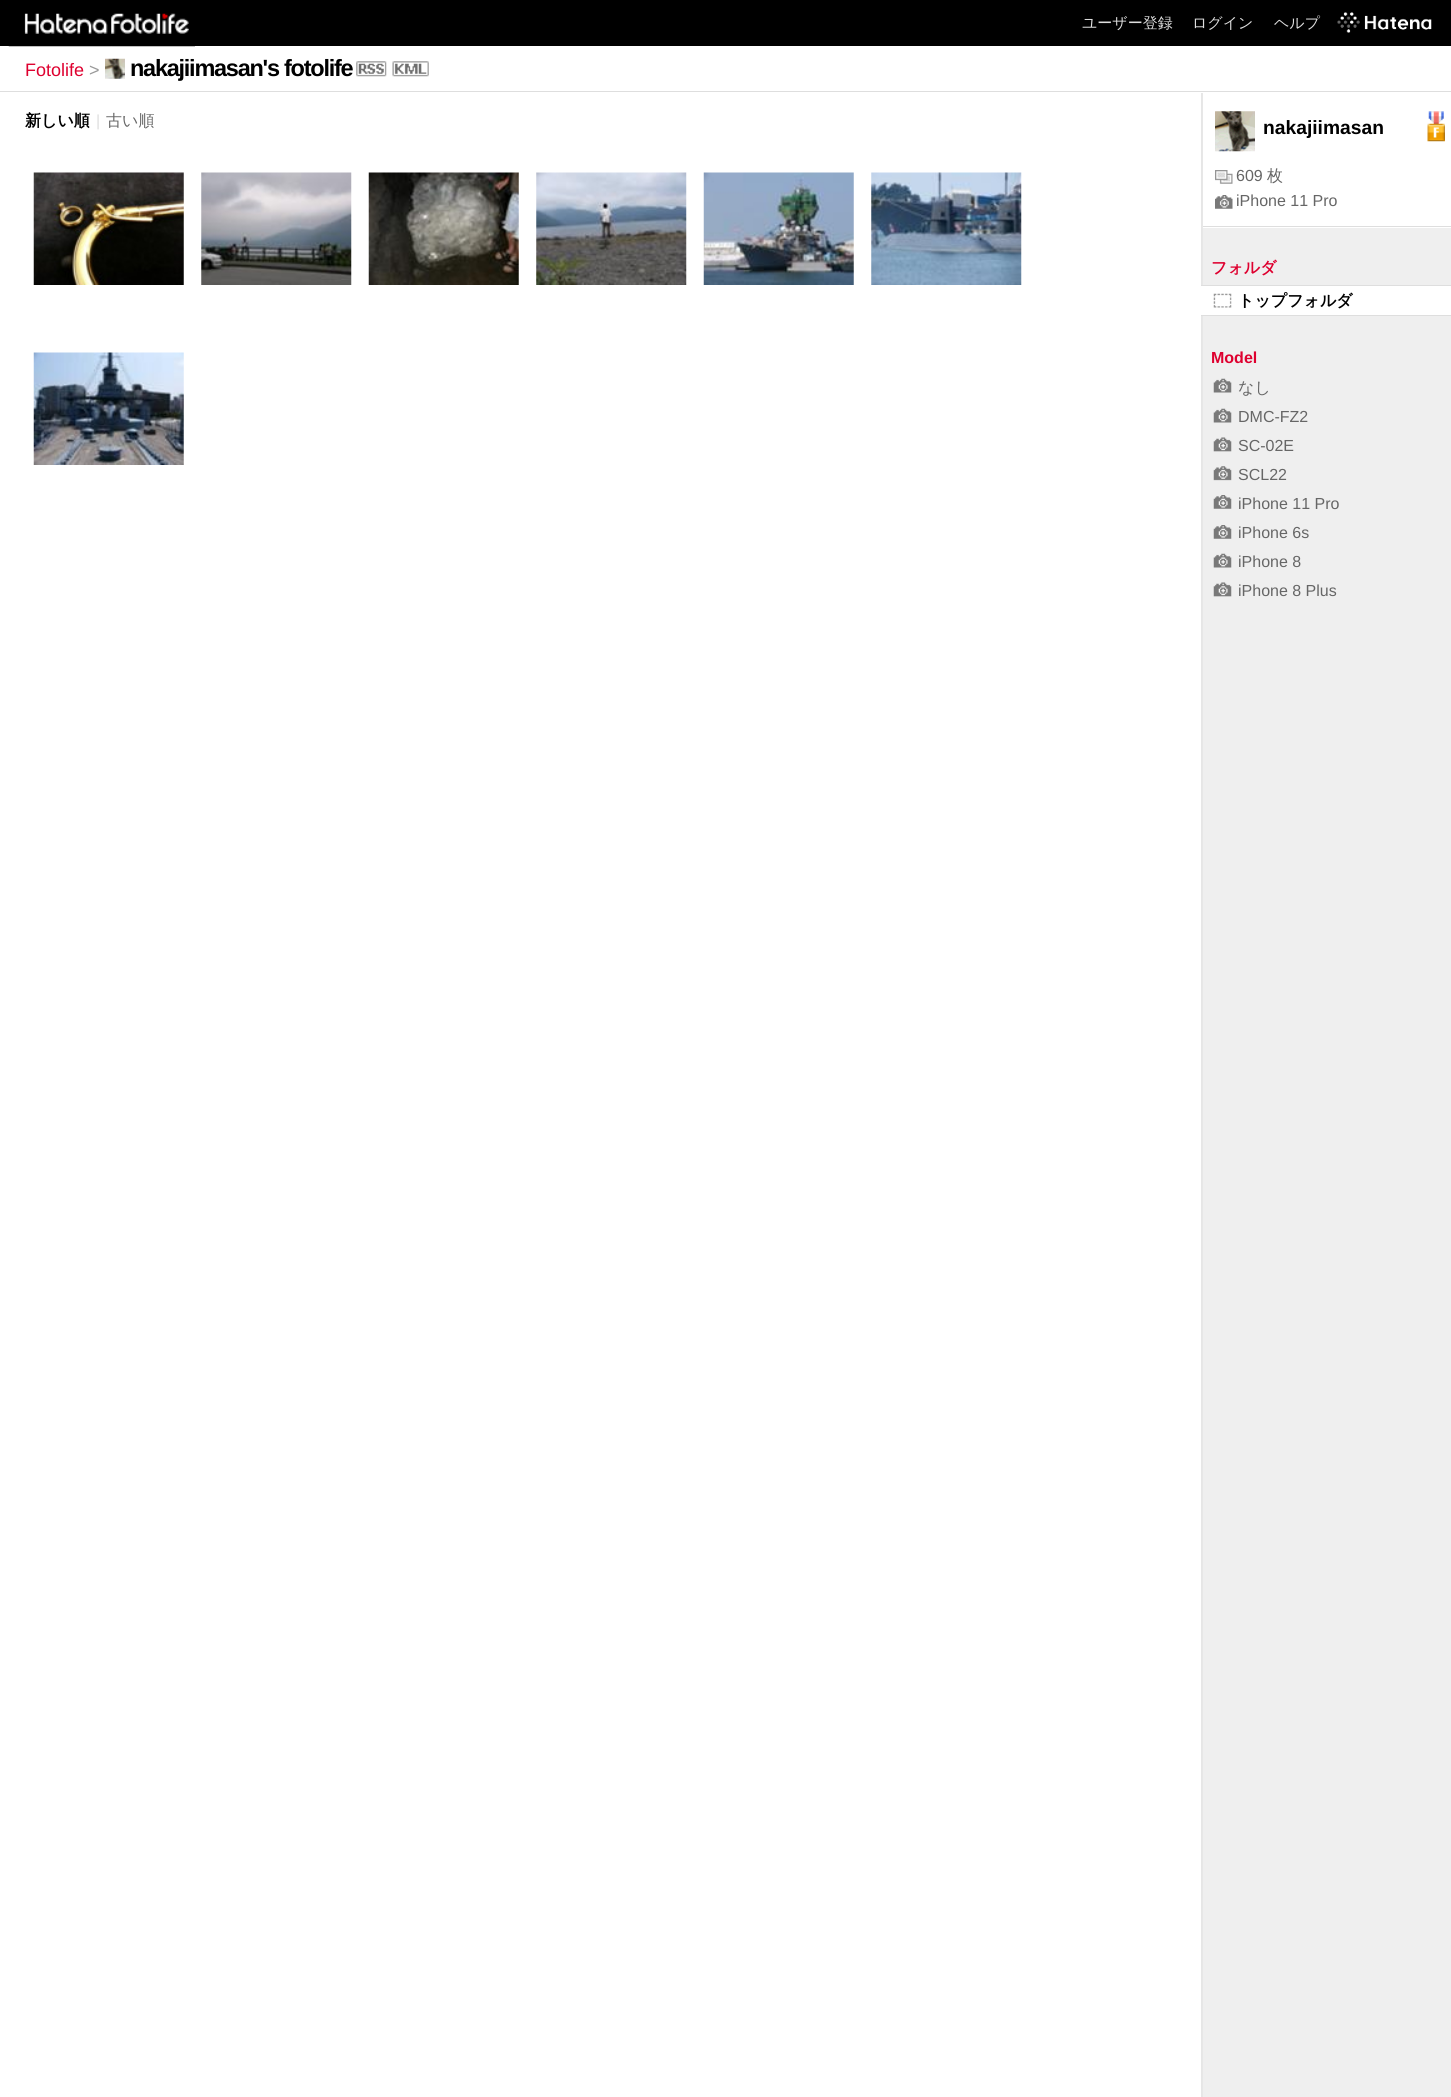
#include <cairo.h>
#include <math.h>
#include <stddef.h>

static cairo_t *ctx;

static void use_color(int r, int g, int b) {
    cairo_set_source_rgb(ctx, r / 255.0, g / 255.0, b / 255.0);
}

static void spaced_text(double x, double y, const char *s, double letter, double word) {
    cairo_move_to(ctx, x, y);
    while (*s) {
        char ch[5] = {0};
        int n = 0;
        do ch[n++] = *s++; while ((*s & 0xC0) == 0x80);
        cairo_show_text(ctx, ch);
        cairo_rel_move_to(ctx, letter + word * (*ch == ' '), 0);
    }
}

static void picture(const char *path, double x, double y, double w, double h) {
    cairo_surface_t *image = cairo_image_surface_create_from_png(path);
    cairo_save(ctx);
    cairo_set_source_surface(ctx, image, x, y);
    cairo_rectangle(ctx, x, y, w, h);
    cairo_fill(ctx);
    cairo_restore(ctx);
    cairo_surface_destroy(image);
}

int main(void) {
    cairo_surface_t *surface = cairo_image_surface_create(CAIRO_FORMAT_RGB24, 1451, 2097);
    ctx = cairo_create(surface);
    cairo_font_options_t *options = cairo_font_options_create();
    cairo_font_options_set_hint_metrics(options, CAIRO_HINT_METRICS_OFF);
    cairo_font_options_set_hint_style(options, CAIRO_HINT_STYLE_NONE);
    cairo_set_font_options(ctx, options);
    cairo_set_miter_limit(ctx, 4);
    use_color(255, 255, 255);
    cairo_paint(ctx);
    picture("img1.png", 1201, 93, 250, 2004);
    use_color(0, 0, 0);
    cairo_rectangle(ctx, 0, 0, 1451, 46);
    cairo_fill(ctx);
    picture("img2.png", 8, 13, 104, 34);
    picture("img3.png", 111, 13, 84, 34);
    cairo_select_font_face(ctx, "WenQuanYi Zen Hei Medium", CAIRO_FONT_SLANT_NORMAL, CAIRO_FONT_WEIGHT_NORMAL);
    cairo_set_font_size(ctx, 15);
    use_color(222, 222, 222);
    cairo_move_to(ctx, 1082, 28);
    cairo_show_text(ctx, "ユーザー登録");
    cairo_move_to(ctx, 1192, 28);
    cairo_show_text(ctx, "ログイン");
    cairo_move_to(ctx, 1274, 28);
    cairo_show_text(ctx, "ヘルプ");
    picture("img4.png", 1337, 12, 95, 21);
    cairo_rectangle(ctx, 0, 91, 1451, 1);
    cairo_fill(ctx);
    cairo_select_font_face(ctx, "Liberation Sans", CAIRO_FONT_SLANT_NORMAL, CAIRO_FONT_WEIGHT_NORMAL);
    cairo_set_font_size(ctx, 18);
    use_color(222, 0, 47);
    cairo_move_to(ctx, 25, 76);
    cairo_show_text(ctx, "Fotolife");
    use_color(153, 153, 153);
    cairo_move_to(ctx, 89, 76);
    cairo_show_text(ctx, ">");
    picture("img5.png", 105, 58, 20, 21);
    cairo_select_font_face(ctx, "Liberation Sans", CAIRO_FONT_SLANT_NORMAL, CAIRO_FONT_WEIGHT_BOLD);
    cairo_set_font_size(ctx, 23.5);
    use_color(0, 0, 0);
    spaced_text(130, 76, "nakajiimasan's fotolife", -1.25, 0);
    picture("img6.png", 356, 61, 31, 16);
    picture("img7.png", 392, 61, 37, 16);
    cairo_select_font_face(ctx, "WenQuanYi Zen Hei", CAIRO_FONT_SLANT_NORMAL, CAIRO_FONT_WEIGHT_BOLD);
    cairo_set_font_size(ctx, 16);
    cairo_move_to(ctx, 25, 126);
    cairo_show_text(ctx, "新しい順");
    cairo_select_font_face(ctx, "Liberation Sans", CAIRO_FONT_SLANT_NORMAL, CAIRO_FONT_WEIGHT_NORMAL);
    use_color(222, 222, 222);
    cairo_move_to(ctx, 96, 126);
    cairo_show_text(ctx, "|");
    cairo_select_font_face(ctx, "WenQuanYi Zen Hei Medium", CAIRO_FONT_SLANT_NORMAL, CAIRO_FONT_WEIGHT_NORMAL);
    use_color(102, 102, 102);
    cairo_move_to(ctx, 106, 126);
    cairo_show_text(ctx, "古い順");
    picture("img8.png", 33, 172, 151, 113);
    picture("img9.png", 201, 172, 151, 113);
    picture("img10.png", 368, 172, 151, 113);
    picture("img11.png", 536, 172, 151, 113);
    picture("img12.png", 703, 172, 151, 113);
    picture("img13.png", 871, 172, 151, 113);
    picture("img14.png", 33, 352, 151, 113);
    use_color(255, 255, 255);
    cairo_rectangle(ctx, 1203, 93, 248, 135);
    cairo_fill(ctx);
    use_color(222, 222, 222);
    cairo_rectangle(ctx, 1203, 226, 248, 1);
    cairo_fill(ctx);
    picture("img15.png", 1215, 111, 40, 41);
    cairo_select_font_face(ctx, "Liberation Sans", CAIRO_FONT_SLANT_NORMAL, CAIRO_FONT_WEIGHT_BOLD);
    cairo_set_font_size(ctx, 19.25);
    use_color(0, 0, 0);
    cairo_move_to(ctx, 1263, 134);
    cairo_show_text(ctx, "nakajiimasan");
    picture("img16.png", 1427, 111, 18, 31);
    picture("img17.png", 1215, 170, 18, 14);
    cairo_select_font_face(ctx, "Liberation Sans", CAIRO_FONT_SLANT_NORMAL, CAIRO_FONT_WEIGHT_NORMAL);
    cairo_set_font_size(ctx, 16);
    use_color(102, 102, 102);
    cairo_move_to(ctx, 1236, 181);
    cairo_show_text(ctx, "609");
    cairo_select_font_face(ctx, "WenQuanYi Zen Hei Medium", CAIRO_FONT_SLANT_NORMAL, CAIRO_FONT_WEIGHT_NORMAL);
    cairo_move_to(ctx, 1267, 181);
    cairo_show_text(ctx, "枚");
    picture("img18.png", 1215, 195, 18, 14);
    cairo_select_font_face(ctx, "Liberation Sans", CAIRO_FONT_SLANT_NORMAL, CAIRO_FONT_WEIGHT_NORMAL);
    cairo_move_to(ctx, 1236, 206);
    cairo_show_text(ctx, "iPhone 11 Pro");
    cairo_select_font_face(ctx, "WenQuanYi Zen Hei", CAIRO_FONT_SLANT_NORMAL, CAIRO_FONT_WEIGHT_BOLD);
    use_color(222, 0, 47);
    cairo_move_to(ctx, 1211, 273);
    cairo_show_text(ctx, "フォルダ");
    use_color(255, 255, 255);
    cairo_rectangle(ctx, 1201, 286, 250, 29);
    cairo_fill(ctx);
    use_color(222, 222, 222);
    cairo_rectangle(ctx, 1201, 285, 250, 1);
    cairo_fill(ctx);
    cairo_rectangle(ctx, 1201, 315, 250, 1);
    cairo_fill(ctx);
    picture("img19.png", 1213, 293, 19, 15);
    use_color(0, 0, 0);
    cairo_move_to(ctx, 1238, 306);
    cairo_show_text(ctx, "トップフォルダ");
    cairo_select_font_face(ctx, "Liberation Sans", CAIRO_FONT_SLANT_NORMAL, CAIRO_FONT_WEIGHT_BOLD);
    use_color(222, 0, 47);
    cairo_move_to(ctx, 1211, 363);
    cairo_show_text(ctx, "Model");
    picture("img20.png", 1213, 378, 19, 15);
    cairo_select_font_face(ctx, "WenQuanYi Zen Hei Medium", CAIRO_FONT_SLANT_NORMAL, CAIRO_FONT_WEIGHT_NORMAL);
    use_color(102, 102, 102);
    cairo_move_to(ctx, 1238, 393);
    cairo_show_text(ctx, "なし");
    picture("img20.png", 1213, 408, 19, 15);
    cairo_select_font_face(ctx, "Liberation Sans", CAIRO_FONT_SLANT_NORMAL, CAIRO_FONT_WEIGHT_NORMAL);
    cairo_move_to(ctx, 1238, 422);
    cairo_show_text(ctx, "DMC-FZ2");
    picture("img21.png", 1213, 437, 19, 15);
    cairo_move_to(ctx, 1238, 451);
    cairo_show_text(ctx, "SC-02E");
    picture("img22.png", 1213, 466, 19, 15);
    cairo_move_to(ctx, 1238, 480);
    cairo_show_text(ctx, "SCL22");
    picture("img23.png", 1213, 495, 19, 14);
    cairo_move_to(ctx, 1238, 509);
    cairo_show_text(ctx, "iPhone 11 Pro");
    picture("img23.png", 1213, 525, 19, 14);
    cairo_move_to(ctx, 1238, 538);
    cairo_show_text(ctx, "iPhone 6s");
    picture("img20.png", 1213, 553, 19, 15);
    cairo_move_to(ctx, 1238, 567);
    cairo_show_text(ctx, "iPhone 8");
    picture("img24.png", 1213, 582, 19, 15);
    cairo_move_to(ctx, 1238, 596);
    cairo_show_text(ctx, "iPhone 8 Plus");
    cairo_surface_write_to_png(surface, "result.png");
    cairo_font_options_destroy(options);
    cairo_destroy(ctx);
    cairo_surface_destroy(surface);
    return 0;
}
